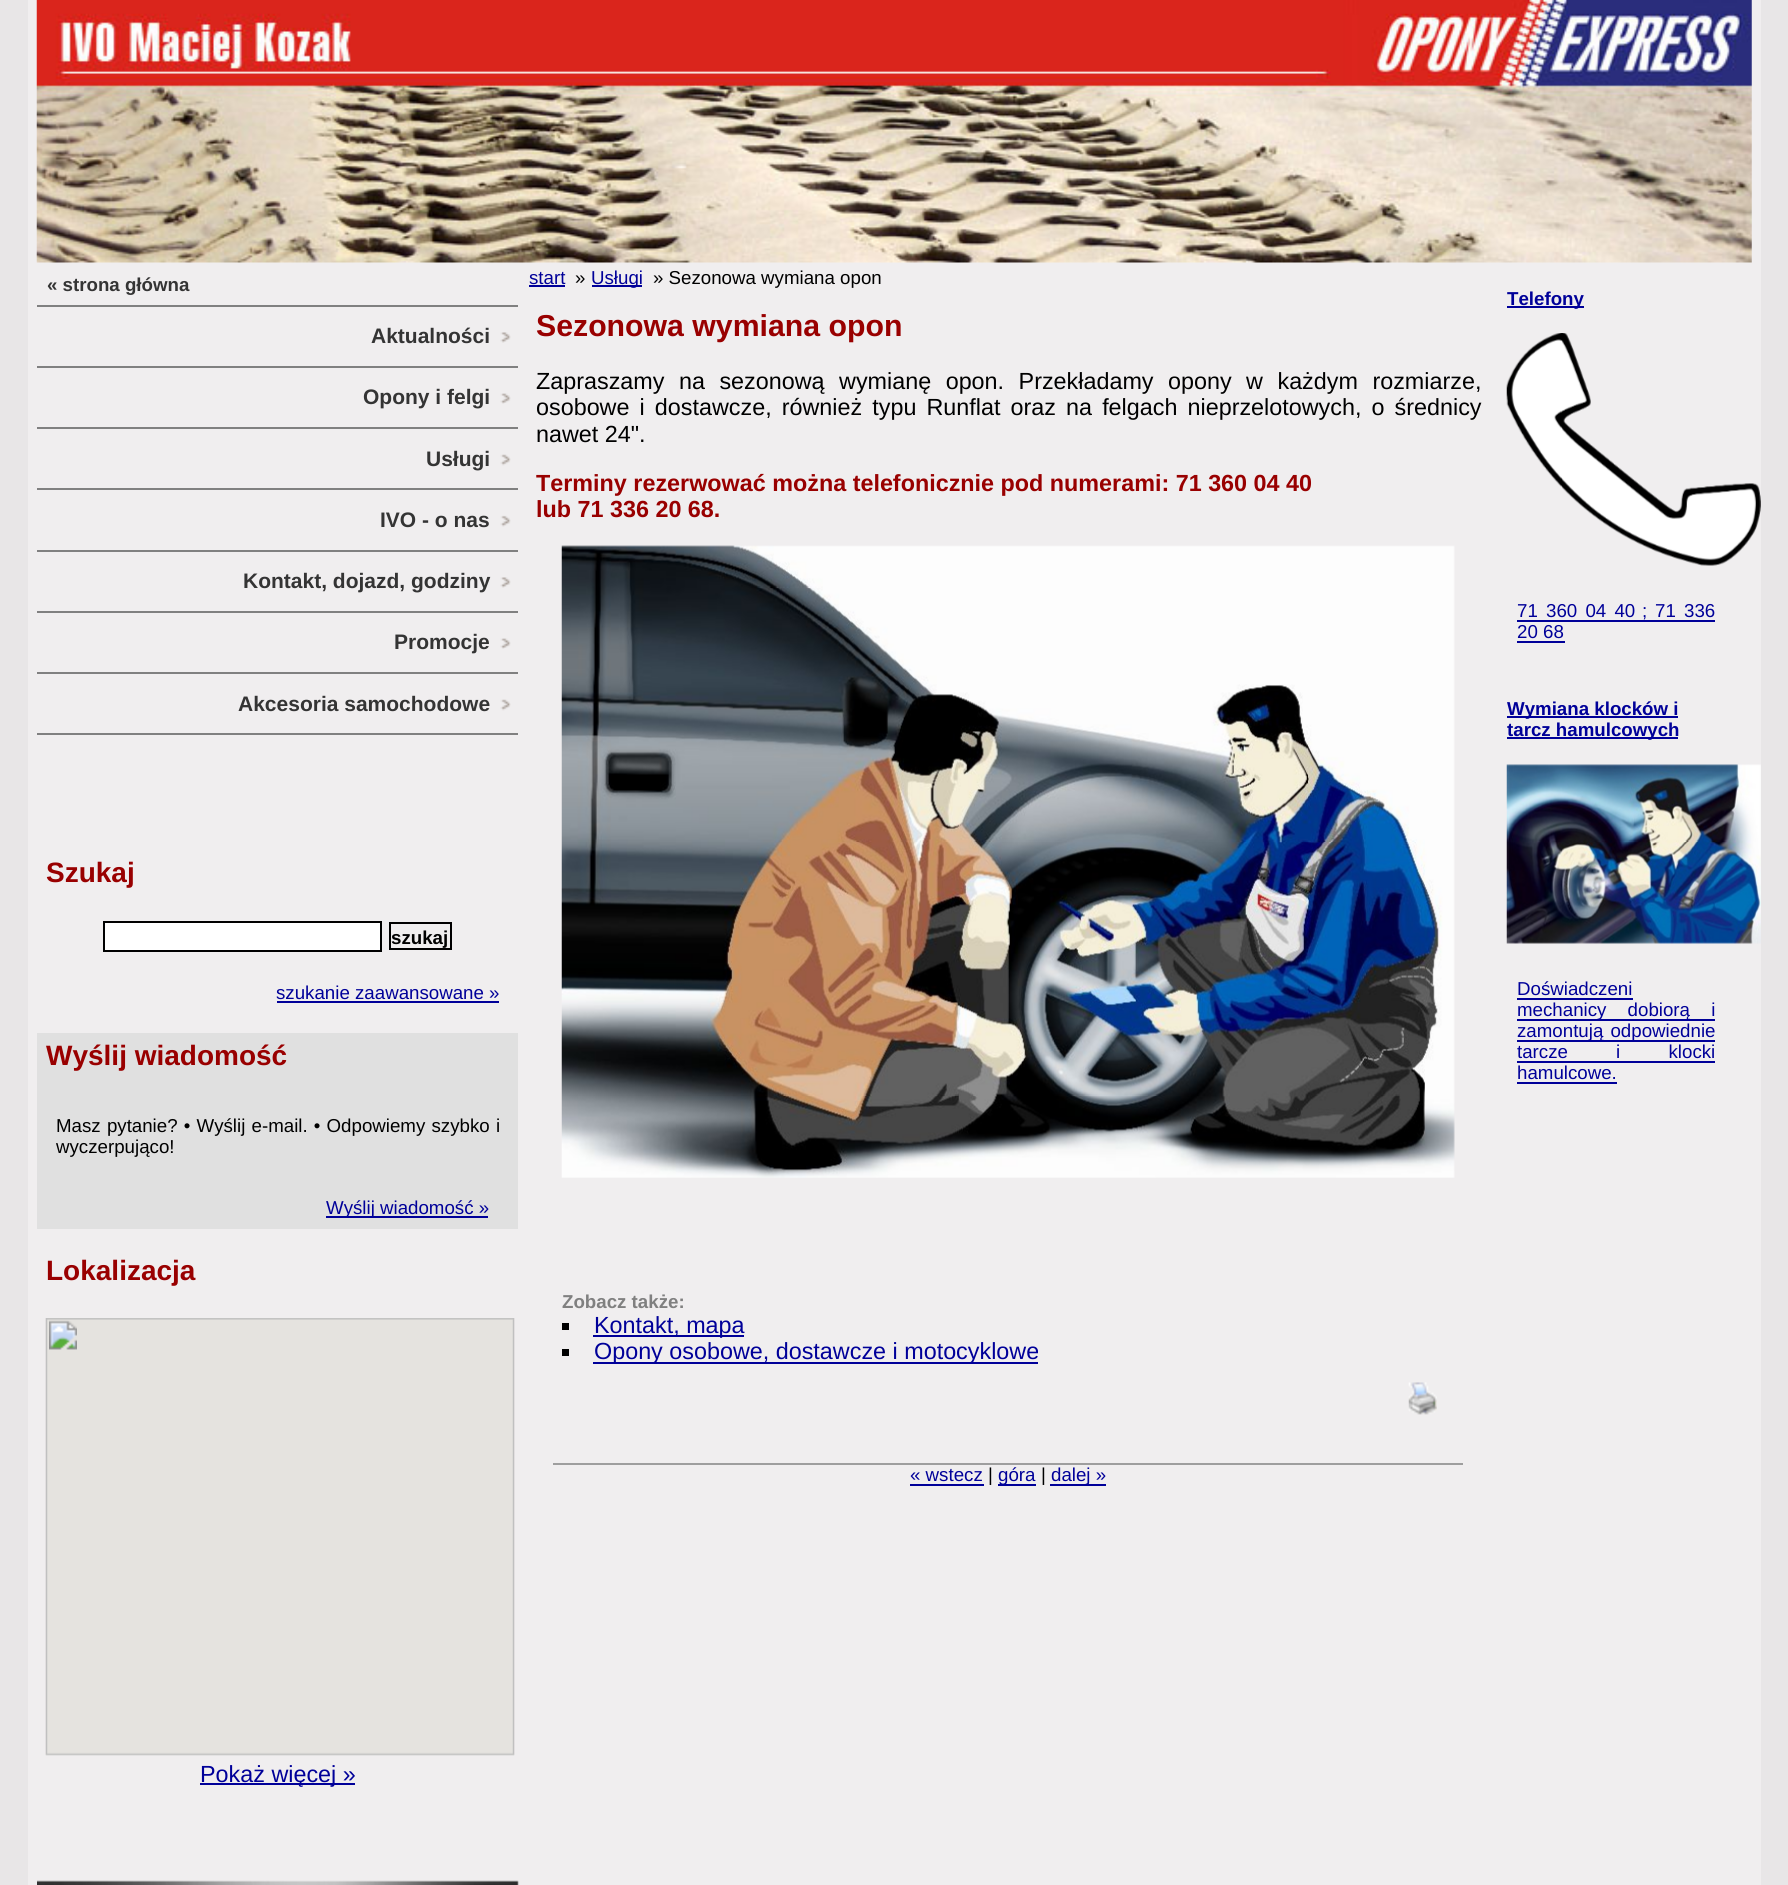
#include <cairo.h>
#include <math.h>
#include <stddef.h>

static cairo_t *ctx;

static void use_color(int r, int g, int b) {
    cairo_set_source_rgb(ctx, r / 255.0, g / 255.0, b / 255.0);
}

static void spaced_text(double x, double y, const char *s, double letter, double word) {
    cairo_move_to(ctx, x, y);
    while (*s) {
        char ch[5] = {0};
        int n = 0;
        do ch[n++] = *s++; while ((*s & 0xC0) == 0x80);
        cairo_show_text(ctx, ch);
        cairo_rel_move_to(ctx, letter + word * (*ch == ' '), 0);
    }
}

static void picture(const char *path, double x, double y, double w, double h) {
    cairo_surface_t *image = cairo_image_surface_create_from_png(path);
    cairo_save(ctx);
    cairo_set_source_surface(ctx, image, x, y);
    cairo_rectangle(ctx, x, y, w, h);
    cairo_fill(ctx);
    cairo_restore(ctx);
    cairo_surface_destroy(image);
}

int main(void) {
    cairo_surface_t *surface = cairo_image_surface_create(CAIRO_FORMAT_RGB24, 1788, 1885);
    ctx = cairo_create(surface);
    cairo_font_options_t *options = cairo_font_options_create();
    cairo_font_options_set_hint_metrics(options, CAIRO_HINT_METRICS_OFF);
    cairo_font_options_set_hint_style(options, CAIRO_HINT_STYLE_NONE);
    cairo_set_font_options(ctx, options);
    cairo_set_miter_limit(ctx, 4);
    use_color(232, 230, 231);
    cairo_paint(ctx);
    use_color(240, 238, 239);
    cairo_rectangle(ctx, 28, 0, 1733, 1885);
    cairo_fill(ctx);
    picture("img1.png", 36, 0, 1716, 263);
    use_color(128, 128, 128);
    cairo_rectangle(ctx, 37, 305, 481, 2);
    cairo_fill(ctx);
    cairo_select_font_face(ctx, "Liberation Sans", CAIRO_FONT_SLANT_NORMAL, CAIRO_FONT_WEIGHT_BOLD);
    cairo_set_font_size(ctx, 18.7);
    use_color(52, 52, 52);
    cairo_move_to(ctx, 47, 291);
    cairo_show_text(ctx, "« strona główna");
    use_color(128, 128, 128);
    cairo_rectangle(ctx, 37, 366, 481, 2);
    cairo_fill(ctx);
    cairo_set_font_size(ctx, 21);
    use_color(52, 52, 52);
    cairo_move_to(ctx, 371, 343);
    cairo_show_text(ctx, "Aktualności");
    picture("img2.png", 500, 332, 11, 11);
    use_color(128, 128, 128);
    cairo_rectangle(ctx, 37, 427, 481, 2);
    cairo_fill(ctx);
    use_color(52, 52, 52);
    cairo_move_to(ctx, 363, 404);
    cairo_show_text(ctx, "Opony i felgi");
    picture("img3.png", 500, 393, 11, 11);
    use_color(128, 128, 128);
    cairo_rectangle(ctx, 37, 488, 481, 2);
    cairo_fill(ctx);
    use_color(52, 52, 52);
    cairo_move_to(ctx, 426, 466);
    cairo_show_text(ctx, "Usługi");
    picture("img4.png", 500, 454, 11, 12);
    use_color(128, 128, 128);
    cairo_rectangle(ctx, 37, 550, 481, 2);
    cairo_fill(ctx);
    use_color(52, 52, 52);
    cairo_move_to(ctx, 380, 527);
    cairo_show_text(ctx, "IVO - o nas");
    picture("img5.png", 500, 515, 11, 12);
    use_color(128, 128, 128);
    cairo_rectangle(ctx, 37, 611, 481, 2);
    cairo_fill(ctx);
    use_color(52, 52, 52);
    cairo_move_to(ctx, 243, 588);
    cairo_show_text(ctx, "Kontakt, dojazd, godziny");
    picture("img2.png", 500, 577, 11, 11);
    use_color(128, 128, 128);
    cairo_rectangle(ctx, 37, 672, 481, 2);
    cairo_fill(ctx);
    use_color(52, 52, 52);
    cairo_move_to(ctx, 394, 649);
    cairo_show_text(ctx, "Promocje");
    picture("img3.png", 500, 638, 11, 11);
    use_color(128, 128, 128);
    cairo_rectangle(ctx, 37, 733, 481, 2);
    cairo_fill(ctx);
    use_color(52, 52, 52);
    cairo_move_to(ctx, 238, 711);
    cairo_show_text(ctx, "Akcesoria samochodowe");
    picture("img4.png", 500, 699, 11, 12);
    cairo_set_font_size(ctx, 28);
    use_color(153, 0, 0);
    cairo_move_to(ctx, 46, 882);
    cairo_show_text(ctx, "Szukaj");
    use_color(255, 255, 255);
    cairo_rectangle(ctx, 104, 922, 277, 29);
    cairo_fill_preserve(ctx);
    use_color(0, 0, 0);
    cairo_stroke(ctx);
    cairo_rectangle(ctx, 390, 923, 61, 26);
    cairo_stroke(ctx);
    cairo_set_font_size(ctx, 18.7);
    cairo_move_to(ctx, 391, 944);
    cairo_show_text(ctx, "szukaj");
    cairo_select_font_face(ctx, "Liberation Sans", CAIRO_FONT_SLANT_NORMAL, CAIRO_FONT_WEIGHT_NORMAL);
    use_color(0, 0, 153);
    cairo_move_to(ctx, 276, 999);
    cairo_show_text(ctx, "szukanie zaawansowane »");
    cairo_rectangle(ctx, 277, 1001, 222, 2);
    cairo_fill(ctx);
    use_color(224, 224, 224);
    cairo_rectangle(ctx, 37, 1033, 481, 196);
    cairo_fill(ctx);
    cairo_select_font_face(ctx, "Liberation Sans", CAIRO_FONT_SLANT_NORMAL, CAIRO_FONT_WEIGHT_BOLD);
    cairo_set_font_size(ctx, 28);
    use_color(153, 0, 0);
    cairo_move_to(ctx, 46, 1065);
    cairo_show_text(ctx, "Wyślij wiadomość");
    cairo_select_font_face(ctx, "Liberation Sans", CAIRO_FONT_SLANT_NORMAL, CAIRO_FONT_WEIGHT_NORMAL);
    cairo_set_font_size(ctx, 18.7);
    use_color(0, 0, 0);
    spaced_text(56, 1132, "Masz pytanie? • Wyślij e-mail. • Odpowiemy szybko i", 0, 1);
    cairo_move_to(ctx, 56, 1153);
    cairo_show_text(ctx, "wyczerpująco!");
    use_color(0, 0, 153);
    cairo_rectangle(ctx, 326, 1216, 162, 2);
    cairo_fill(ctx);
    cairo_move_to(ctx, 326, 1214);
    cairo_show_text(ctx, "Wyślij wiadomość »");
    cairo_select_font_face(ctx, "Liberation Sans", CAIRO_FONT_SLANT_NORMAL, CAIRO_FONT_WEIGHT_BOLD);
    cairo_set_font_size(ctx, 28);
    use_color(153, 0, 0);
    cairo_move_to(ctx, 46, 1280);
    cairo_show_text(ctx, "Lokalizacja");
    picture("img6.png", 45, 1318, 470, 438);
    use_color(0, 0, 153);
    cairo_rectangle(ctx, 200, 1783, 155, 2);
    cairo_fill(ctx);
    cairo_select_font_face(ctx, "Liberation Sans", CAIRO_FONT_SLANT_NORMAL, CAIRO_FONT_WEIGHT_NORMAL);
    cairo_set_font_size(ctx, 23.35);
    cairo_move_to(ctx, 200, 1782);
    cairo_show_text(ctx, "Pokaż więcej »");
    picture("img7.png", 37, 1880, 482, 5);
    cairo_set_font_size(ctx, 18.7);
    cairo_move_to(ctx, 529, 284);
    cairo_show_text(ctx, "start");
    cairo_rectangle(ctx, 529, 285, 36, 2);
    cairo_fill(ctx);
    use_color(0, 0, 0);
    cairo_move_to(ctx, 575, 284);
    cairo_show_text(ctx, "»");
    use_color(0, 0, 153);
    cairo_rectangle(ctx, 592, 285, 50, 2);
    cairo_fill(ctx);
    cairo_move_to(ctx, 591, 284);
    cairo_show_text(ctx, "Usługi");
    use_color(0, 0, 0);
    cairo_move_to(ctx, 653, 284);
    cairo_show_text(ctx, "» Sezonowa wymiana opon");
    cairo_select_font_face(ctx, "Liberation Sans", CAIRO_FONT_SLANT_NORMAL, CAIRO_FONT_WEIGHT_BOLD);
    cairo_set_font_size(ctx, 30.25);
    use_color(153, 0, 0);
    cairo_move_to(ctx, 536, 336);
    cairo_show_text(ctx, "Sezonowa wymiana opon");
    cairo_select_font_face(ctx, "Liberation Sans", CAIRO_FONT_SLANT_NORMAL, CAIRO_FONT_WEIGHT_NORMAL);
    cairo_set_font_size(ctx, 23.35);
    use_color(0, 0, 0);
    spaced_text(536, 389, "Zapraszamy na sezonową wymianę opon. Przekładamy opony w każdym rozmiarze,", 0, 8);
    spaced_text(536, 415, "osobowe i dostawcze, również typu Runflat oraz na felgach nieprzelotowych, o średnicy", 0, 3.6);
    cairo_move_to(ctx, 536, 442);
    cairo_show_text(ctx, "nawet 24\".");
    cairo_select_font_face(ctx, "Liberation Sans", CAIRO_FONT_SLANT_NORMAL, CAIRO_FONT_WEIGHT_BOLD);
    use_color(153, 0, 0);
    cairo_move_to(ctx, 536, 491);
    cairo_show_text(ctx, "Terminy rezerwować można telefonicznie pod numerami: 71 360 04 40");
    cairo_move_to(ctx, 536, 517);
    cairo_show_text(ctx, "lub 71 336 20 68.");
    picture("img8.png", 561, 545, 894, 633);
    cairo_set_font_size(ctx, 18.7);
    use_color(128, 128, 128);
    cairo_move_to(ctx, 562, 1308);
    cairo_show_text(ctx, "Zobacz także:");
    use_color(0, 0, 0);
    cairo_rectangle(ctx, 562, 1323, 7, 7);
    cairo_fill(ctx);
    use_color(0, 0, 153);
    cairo_rectangle(ctx, 593, 1335, 151, 2);
    cairo_fill(ctx);
    cairo_select_font_face(ctx, "Liberation Sans", CAIRO_FONT_SLANT_NORMAL, CAIRO_FONT_WEIGHT_NORMAL);
    cairo_set_font_size(ctx, 23.35);
    cairo_move_to(ctx, 594, 1333);
    cairo_show_text(ctx, "Kontakt, mapa");
    use_color(0, 0, 0);
    cairo_rectangle(ctx, 562, 1349, 7, 7);
    cairo_fill(ctx);
    use_color(0, 0, 153);
    cairo_rectangle(ctx, 593, 1362, 445, 2);
    cairo_fill(ctx);
    cairo_move_to(ctx, 594, 1359);
    cairo_show_text(ctx, "Opony osobowe, dostawcze i motocyklowe");
    picture("img9.png", 1408, 1382, 29, 33);
    use_color(158, 158, 158);
    cairo_rectangle(ctx, 553, 1463, 910, 2);
    cairo_fill(ctx);
    cairo_set_font_size(ctx, 18.7);
    use_color(0, 0, 153);
    cairo_move_to(ctx, 910, 1481);
    cairo_show_text(ctx, "« wstecz");
    cairo_rectangle(ctx, 910, 1484, 74, 2);
    cairo_fill(ctx);
    use_color(0, 0, 0);
    cairo_move_to(ctx, 988, 1481);
    cairo_show_text(ctx, "|");
    use_color(0, 0, 153);
    cairo_rectangle(ctx, 998, 1484, 38, 2);
    cairo_fill(ctx);
    cairo_move_to(ctx, 998, 1481);
    cairo_show_text(ctx, "góra");
    use_color(0, 0, 0);
    cairo_move_to(ctx, 1041, 1481);
    cairo_show_text(ctx, "|");
    use_color(0, 0, 153);
    cairo_rectangle(ctx, 1050, 1484, 56, 2);
    cairo_fill(ctx);
    cairo_move_to(ctx, 1051, 1481);
    cairo_show_text(ctx, "dalej »");
    cairo_rectangle(ctx, 1507, 306, 77, 2);
    cairo_fill(ctx);
    cairo_select_font_face(ctx, "Liberation Sans", CAIRO_FONT_SLANT_NORMAL, CAIRO_FONT_WEIGHT_BOLD);
    cairo_move_to(ctx, 1507, 305);
    cairo_show_text(ctx, "Telefony");
    picture("img10.png", 1506, 333, 255, 233);
    cairo_select_font_face(ctx, "Liberation Sans", CAIRO_FONT_SLANT_NORMAL, CAIRO_FONT_WEIGHT_NORMAL);
    spaced_text(1517, 617, "71 360 04 40", 0, 3);
    cairo_move_to(ctx, 1642, 617);
    cairo_show_text(ctx, ";");
    cairo_rectangle(ctx, 1517, 620, 198, 2);
    cairo_fill(ctx);
    spaced_text(1655, 617, "71 336", 0, 3);
    cairo_move_to(ctx, 1517, 638);
    cairo_show_text(ctx, "20 68");
    cairo_rectangle(ctx, 1517, 641, 48, 2);
    cairo_fill(ctx);
    cairo_rectangle(ctx, 1507, 716, 171, 2);
    cairo_fill(ctx);
    cairo_select_font_face(ctx, "Liberation Sans", CAIRO_FONT_SLANT_NORMAL, CAIRO_FONT_WEIGHT_BOLD);
    cairo_move_to(ctx, 1507, 715);
    cairo_show_text(ctx, "Wymiana klocków i");
    cairo_rectangle(ctx, 1507, 737, 171, 2);
    cairo_fill(ctx);
    cairo_move_to(ctx, 1507, 736);
    cairo_show_text(ctx, "tarcz hamulcowych");
    picture("img11.png", 1506, 764, 255, 180);
    cairo_select_font_face(ctx, "Liberation Sans", CAIRO_FONT_SLANT_NORMAL, CAIRO_FONT_WEIGHT_NORMAL);
    cairo_move_to(ctx, 1517, 995);
    cairo_show_text(ctx, "Doświadczeni");
    cairo_rectangle(ctx, 1517, 998, 116, 2);
    cairo_fill(ctx);
    cairo_rectangle(ctx, 1517, 1019, 198, 2);
    cairo_fill(ctx);
    spaced_text(1517, 1016, "mechanicy dobiorą i", 0, 16);
    cairo_rectangle(ctx, 1517, 1040, 198, 2);
    cairo_fill(ctx);
    spaced_text(1517, 1037, "zamontują odpowiednie", 0, 2);
    spaced_text(1517, 1058, "tarcze i klocki", 0, 43);
    cairo_rectangle(ctx, 1517, 1061, 198, 2);
    cairo_fill(ctx);
    cairo_move_to(ctx, 1517, 1079);
    cairo_show_text(ctx, "hamulcowe.");
    cairo_rectangle(ctx, 1517, 1082, 100, 2);
    cairo_fill(ctx);
    cairo_surface_write_to_png(surface, "result.png");
    cairo_font_options_destroy(options);
    cairo_destroy(ctx);
    cairo_surface_destroy(surface);
    return 0;
}
